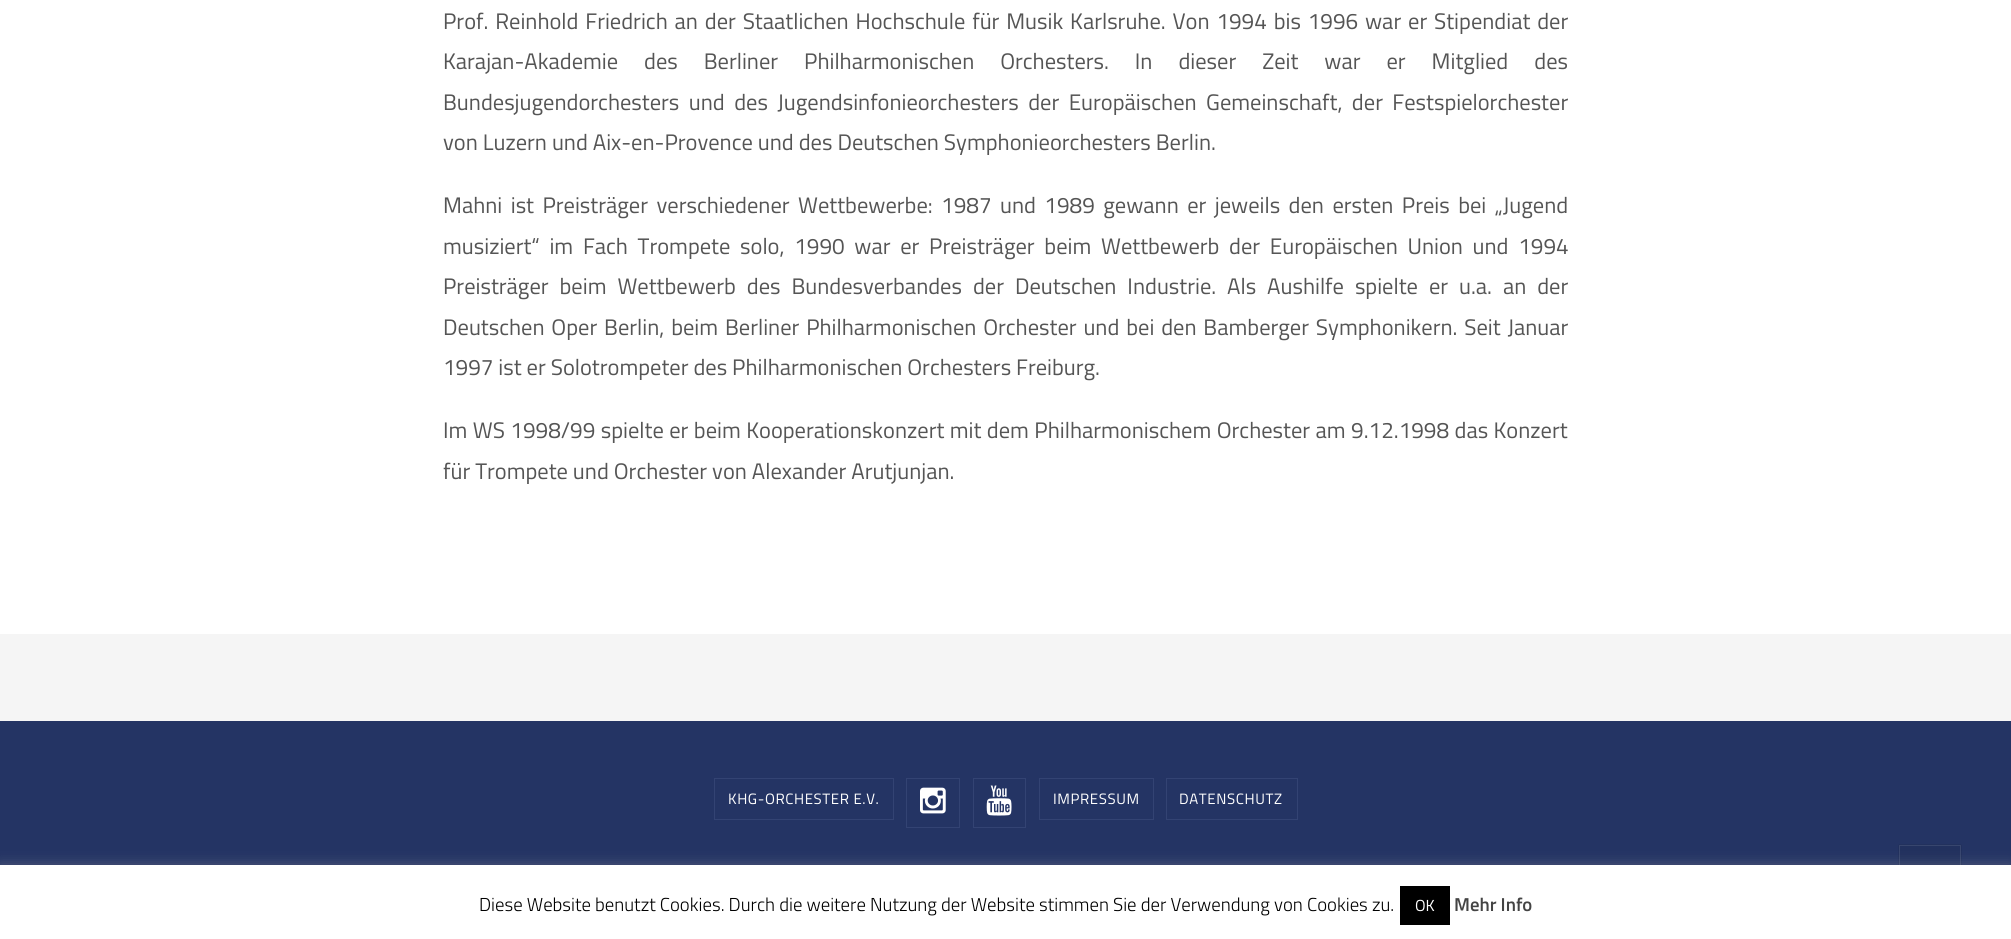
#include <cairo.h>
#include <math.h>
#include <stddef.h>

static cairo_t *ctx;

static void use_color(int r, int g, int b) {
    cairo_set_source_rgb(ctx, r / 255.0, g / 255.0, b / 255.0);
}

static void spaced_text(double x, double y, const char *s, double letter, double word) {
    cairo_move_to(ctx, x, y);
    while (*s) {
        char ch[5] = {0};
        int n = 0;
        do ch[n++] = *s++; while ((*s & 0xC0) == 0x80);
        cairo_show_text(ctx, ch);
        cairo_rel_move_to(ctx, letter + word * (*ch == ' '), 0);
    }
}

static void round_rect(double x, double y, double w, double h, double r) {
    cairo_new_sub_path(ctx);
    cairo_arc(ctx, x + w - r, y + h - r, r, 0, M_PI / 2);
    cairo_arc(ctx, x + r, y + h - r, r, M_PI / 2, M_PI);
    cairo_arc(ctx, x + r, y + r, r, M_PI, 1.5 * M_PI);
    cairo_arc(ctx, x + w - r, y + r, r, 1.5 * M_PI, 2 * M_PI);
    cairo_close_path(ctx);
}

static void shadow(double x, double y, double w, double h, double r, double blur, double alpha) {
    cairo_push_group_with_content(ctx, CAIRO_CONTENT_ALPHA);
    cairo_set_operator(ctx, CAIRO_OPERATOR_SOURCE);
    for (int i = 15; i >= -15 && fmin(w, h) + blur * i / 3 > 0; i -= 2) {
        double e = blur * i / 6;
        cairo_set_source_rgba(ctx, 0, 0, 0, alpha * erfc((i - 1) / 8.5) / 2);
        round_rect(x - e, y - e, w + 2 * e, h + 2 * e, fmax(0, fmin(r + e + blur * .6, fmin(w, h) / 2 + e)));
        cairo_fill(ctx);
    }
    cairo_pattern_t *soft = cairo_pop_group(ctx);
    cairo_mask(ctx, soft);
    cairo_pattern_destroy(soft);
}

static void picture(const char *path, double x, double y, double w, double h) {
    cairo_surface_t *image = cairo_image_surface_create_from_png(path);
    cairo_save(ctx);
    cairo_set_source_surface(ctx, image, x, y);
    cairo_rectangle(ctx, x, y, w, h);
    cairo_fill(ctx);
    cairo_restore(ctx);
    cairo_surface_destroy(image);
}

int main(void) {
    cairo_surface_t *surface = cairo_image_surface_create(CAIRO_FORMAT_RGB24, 2011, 939);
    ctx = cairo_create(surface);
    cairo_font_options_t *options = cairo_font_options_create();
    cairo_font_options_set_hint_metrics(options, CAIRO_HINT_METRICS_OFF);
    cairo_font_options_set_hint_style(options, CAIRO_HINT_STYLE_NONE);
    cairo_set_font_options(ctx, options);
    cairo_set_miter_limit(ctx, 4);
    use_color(255, 255, 255);
    cairo_paint(ctx);
    cairo_select_font_face(ctx, "Titillium Web", CAIRO_FONT_SLANT_NORMAL, CAIRO_FONT_WEIGHT_NORMAL);
    cairo_set_font_size(ctx, 22.5);
    use_color(85, 85, 85);
    spaced_text(443, 29, "Prof. Reinhold Friedrich an der Staatlichen Hochschule für Musik Karlsruhe. Von 1994 bis 1996 war er Stipendiat der", 0, 1.9);
    spaced_text(443, 69, "Karajan-Akademie des Berliner Philharmonischen Orchesters. In dieser Zeit war er Mitglied des", 0, 21);
    spaced_text(443, 110, "Bundesjugendorchesters und des Jugendsinfonieorchesters der Europäischen Gemeinschaft, der Festspielorchester", 0, 4.5);
    cairo_move_to(ctx, 443, 150);
    cairo_show_text(ctx, "von Luzern und Aix-en-Provence und des Deutschen Symphonieorchesters Berlin.");
    spaced_text(443, 213, "Mahni ist Preisträger verschiedener Wettbewerbe: 1987 und 1989 gewann er jeweils den ersten Preis bei „Jugend", 0, 3.5);
    spaced_text(443, 254, "musiziert“ im Fach Trompete solo, 1990 war er Preisträger beim Wettbewerb der Europäischen Union und 1994", 0, 4.75);
    spaced_text(443, 294, "Preisträger beim Wettbewerb des Bundesverbandes der Deutschen Industrie. Als Aushilfe spielte er u.a. an der", 0, 6);
    spaced_text(443, 335, "Deutschen Oper Berlin, beim Berliner Philharmonischen Orchester und bei den Bamberger Symphonikern. Seit Januar", 0, 1.9);
    cairo_move_to(ctx, 443, 375);
    cairo_show_text(ctx, "1997 ist er Solotrompeter des Philharmonischen Orchesters Freiburg.");
    spaced_text(443, 438, "Im WS 1998/99 spielte er beim Kooperationskonzert mit dem Philharmonischem Orchester am 9.12.1998 das Konzert", 0, 0.5);
    cairo_move_to(ctx, 443, 479);
    cairo_show_text(ctx, "für Trompete und Orchester von Alexander Arutjunjan.");
    use_color(245, 245, 245);
    cairo_rectangle(ctx, 0, 634, 2011, 87);
    cairo_fill(ctx);
    use_color(36, 52, 100);
    cairo_rectangle(ctx, 0, 721, 2011, 144);
    cairo_fill(ctx);
    cairo_rectangle(ctx, 714.5, 778.5, 179, 41);
    use_color(51, 67, 115);
    cairo_set_line_width(ctx, 1);
    cairo_stroke(ctx);
    cairo_set_font_size(ctx, 15);
    use_color(255, 255, 255);
    spaced_text(728, 804, "KHG-ORCHESTER E.V.", 0.6, 0);
    cairo_rectangle(ctx, 906.5, 778.5, 53, 49);
    use_color(51, 67, 115);
    cairo_stroke(ctx);
    picture("img1.png", 920, 787, 26, 27);
    cairo_rectangle(ctx, 973.5, 778.5, 52, 49);
    cairo_stroke(ctx);
    picture("img2.png", 986, 785, 26, 31);
    cairo_rectangle(ctx, 1039.5, 778.5, 114, 41);
    cairo_stroke(ctx);
    use_color(255, 255, 255);
    spaced_text(1053, 804, "IMPRESSUM", 0.6, 0);
    cairo_rectangle(ctx, 1166.5, 778.5, 131, 41);
    use_color(51, 67, 115);
    cairo_stroke(ctx);
    use_color(255, 255, 255);
    spaced_text(1179, 804, "DATENSCHUTZ", 0.6, 0);
    use_color(0, 0, 0);
    shadow(1899, 845, 62, 70, 0, 0.5, 0.28);
    use_color(34, 49, 94);
    cairo_rectangle(ctx, 1900, 846, 60, 19);
    cairo_fill(ctx);
    cairo_rectangle(ctx, 1899.5, 845.5, 61, 69);
    use_color(56, 70, 110);
    cairo_stroke(ctx);
    use_color(172, 171, 171);
    shadow(0, 864, 2011, 75, 0, 6, 0.3);
    use_color(255, 255, 255);
    cairo_rectangle(ctx, 0, 865, 2011, 74);
    cairo_fill(ctx);
    cairo_select_font_face(ctx, "Titillium Web Light", CAIRO_FONT_SLANT_NORMAL, CAIRO_FONT_WEIGHT_NORMAL);
    cairo_set_font_size(ctx, 18.75);
    use_color(0, 0, 0);
    cairo_move_to(ctx, 479, 911);
    cairo_show_text(ctx, "Diese Website benutzt Cookies. Durch die weitere Nutzung der Website stimmen Sie der Verwendung von Cookies zu.");
    cairo_rectangle(ctx, 1400, 886, 50, 39);
    cairo_fill(ctx);
    cairo_select_font_face(ctx, "Titillium Web", CAIRO_FONT_SLANT_NORMAL, CAIRO_FONT_WEIGHT_NORMAL);
    cairo_set_font_size(ctx, 16);
    use_color(255, 255, 255);
    cairo_move_to(ctx, 1415, 911);
    cairo_show_text(ctx, "OK");
    cairo_select_font_face(ctx, "Titillium Web SemiBold", CAIRO_FONT_SLANT_NORMAL, CAIRO_FONT_WEIGHT_NORMAL);
    cairo_set_font_size(ctx, 18.75);
    use_color(68, 68, 68);
    cairo_move_to(ctx, 1454, 911);
    cairo_show_text(ctx, "Mehr Info");
    cairo_surface_write_to_png(surface, "result.png");
    cairo_font_options_destroy(options);
    cairo_destroy(ctx);
    cairo_surface_destroy(surface);
    return 0;
}
